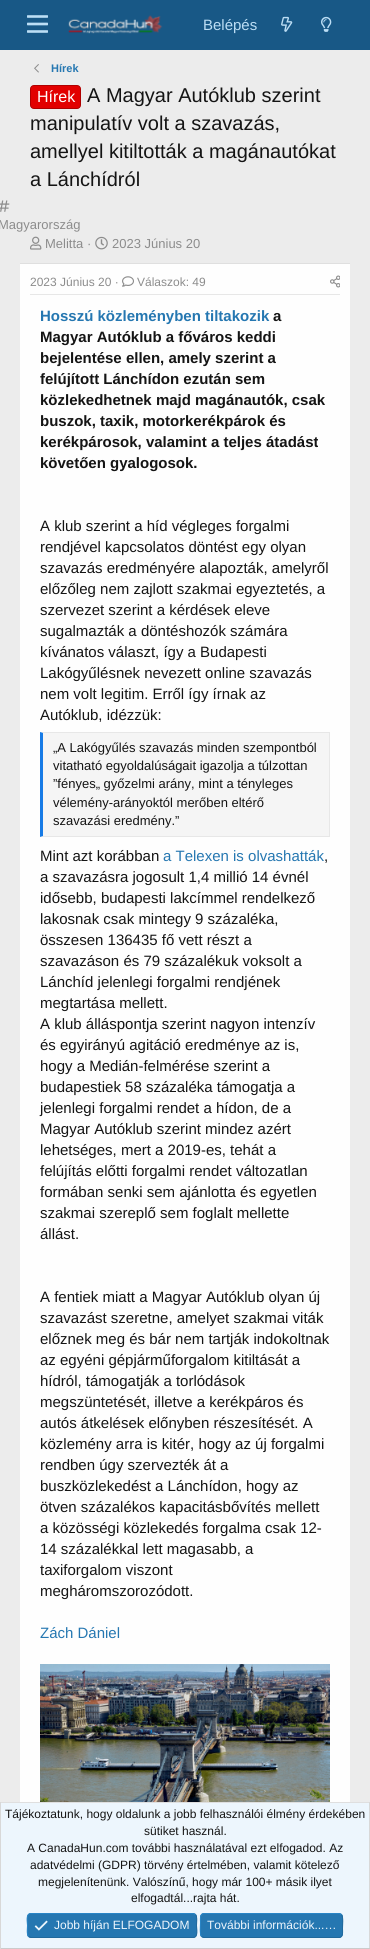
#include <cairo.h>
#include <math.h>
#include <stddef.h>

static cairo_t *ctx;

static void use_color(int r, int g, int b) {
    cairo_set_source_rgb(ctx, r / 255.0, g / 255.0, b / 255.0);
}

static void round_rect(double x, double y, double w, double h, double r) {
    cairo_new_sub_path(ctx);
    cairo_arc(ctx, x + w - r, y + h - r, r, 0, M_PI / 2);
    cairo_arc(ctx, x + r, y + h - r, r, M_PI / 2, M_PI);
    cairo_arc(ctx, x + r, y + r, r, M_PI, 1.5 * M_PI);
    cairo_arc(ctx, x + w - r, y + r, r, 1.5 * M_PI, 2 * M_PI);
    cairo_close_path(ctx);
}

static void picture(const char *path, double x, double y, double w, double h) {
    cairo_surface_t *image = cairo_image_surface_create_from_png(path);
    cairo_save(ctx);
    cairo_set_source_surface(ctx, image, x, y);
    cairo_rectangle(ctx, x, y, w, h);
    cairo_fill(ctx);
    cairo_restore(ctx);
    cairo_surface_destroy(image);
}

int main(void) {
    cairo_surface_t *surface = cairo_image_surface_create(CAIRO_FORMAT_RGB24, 370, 1949);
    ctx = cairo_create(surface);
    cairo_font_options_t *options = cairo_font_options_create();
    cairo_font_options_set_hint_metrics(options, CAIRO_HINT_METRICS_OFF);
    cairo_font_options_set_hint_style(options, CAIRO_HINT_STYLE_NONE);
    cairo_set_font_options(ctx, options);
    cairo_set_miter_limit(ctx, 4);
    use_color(236, 236, 236);
    cairo_paint(ctx);
    use_color(24, 88, 134);
    cairo_rectangle(ctx, 0, 0, 370, 50);
    cairo_fill(ctx);
    picture("img1.png", 27, 15, 21, 18);
    picture("img2.png", 68, 15, 95, 19);
    cairo_select_font_face(ctx, "Liberation Sans", CAIRO_FONT_SLANT_NORMAL, CAIRO_FONT_WEIGHT_NORMAL);
    cairo_set_font_size(ctx, 15);
    use_color(188, 222, 245);
    cairo_move_to(ctx, 203, 30);
    cairo_show_text(ctx, "Belépés");
    picture("img3.png", 281, 16, 12, 16);
    picture("img4.png", 321, 16, 11, 16);
    picture("img5.png", 34, 64, 5, 9);
    cairo_select_font_face(ctx, "Liberation Sans", CAIRO_FONT_SLANT_NORMAL, CAIRO_FONT_WEIGHT_BOLD);
    cairo_set_font_size(ctx, 11);
    use_color(37, 119, 177);
    cairo_move_to(ctx, 51, 72);
    cairo_show_text(ctx, "Hírek");
    use_color(226, 0, 0);
    round_rect(30.5, 85.5, 50, 23, 3.5);
    cairo_fill_preserve(ctx);
    use_color(175, 0, 0);
    cairo_set_line_width(ctx, 1);
    cairo_stroke(ctx);
    cairo_select_font_face(ctx, "Liberation Sans", CAIRO_FONT_SLANT_NORMAL, CAIRO_FONT_WEIGHT_NORMAL);
    cairo_set_font_size(ctx, 16);
    use_color(255, 255, 255);
    cairo_move_to(ctx, 37, 102);
    cairo_show_text(ctx, "Hírek");
    cairo_set_font_size(ctx, 20);
    use_color(20, 20, 20);
    cairo_move_to(ctx, 87, 102);
    cairo_show_text(ctx, "A Magyar Autóklub szerint");
    cairo_move_to(ctx, 30, 130);
    cairo_show_text(ctx, "manipulatív volt a szavazás,");
    cairo_move_to(ctx, 30, 158);
    cairo_show_text(ctx, "amellyel kitiltották a magánautókat");
    cairo_move_to(ctx, 30, 186);
    cairo_show_text(ctx, "a Lánchídról");
    picture("img6.png", 0, 200, 10, 12);
    cairo_set_font_size(ctx, 13);
    use_color(140, 140, 140);
    cairo_move_to(ctx, -2, 229);
    cairo_show_text(ctx, "Magyarország");
    picture("img7.png", 30, 236, 12, 14);
    cairo_move_to(ctx, 45, 248);
    cairo_show_text(ctx, "Melitta ·");
    picture("img8.png", 95, 236, 13, 14);
    cairo_move_to(ctx, 112, 248);
    cairo_show_text(ctx, "2023 Június 20");
    use_color(254, 254, 254);
    cairo_rectangle(ctx, 20, 264, 330, 1538);
    cairo_fill(ctx);
    use_color(223, 223, 223);
    cairo_rectangle(ctx, 20, 263, 330, 1);
    cairo_fill(ctx);
    use_color(231, 231, 231);
    cairo_rectangle(ctx, 30, 294, 310, 1);
    cairo_fill(ctx);
    cairo_set_font_size(ctx, 12);
    use_color(140, 140, 140);
    cairo_move_to(ctx, 30, 286);
    cairo_show_text(ctx, "2023 Június 20 ·");
    picture("img9.png", 122, 276, 12, 11);
    cairo_move_to(ctx, 137, 286);
    cairo_show_text(ctx, "Válaszok: 49");
    picture("img10.png", 330, 275, 10, 13);
    cairo_select_font_face(ctx, "Liberation Sans", CAIRO_FONT_SLANT_NORMAL, CAIRO_FONT_WEIGHT_BOLD);
    cairo_set_font_size(ctx, 15);
    use_color(37, 119, 177);
    cairo_move_to(ctx, 40, 321);
    cairo_show_text(ctx, "Hosszú közleményben tiltakozik");
    use_color(20, 20, 20);
    cairo_move_to(ctx, 273, 321);
    cairo_show_text(ctx, "a");
    cairo_move_to(ctx, 40, 342);
    cairo_show_text(ctx, "Magyar Autóklub a főváros keddi");
    cairo_move_to(ctx, 40, 363);
    cairo_show_text(ctx, "bejelentése ellen, amely szerint a");
    cairo_move_to(ctx, 40, 384);
    cairo_show_text(ctx, "felújított Lánchídon ezután sem");
    cairo_move_to(ctx, 40, 405);
    cairo_show_text(ctx, "közlekedhetnek majd magánautók, csak");
    cairo_move_to(ctx, 40, 426);
    cairo_show_text(ctx, "buszok, taxik, motorkerékpárok és");
    cairo_move_to(ctx, 40, 447);
    cairo_show_text(ctx, "kerékpárosok, valamint a teljes átadást");
    cairo_move_to(ctx, 40, 468);
    cairo_show_text(ctx, "követően gyalogosok.");
    cairo_select_font_face(ctx, "Liberation Sans", CAIRO_FONT_SLANT_NORMAL, CAIRO_FONT_WEIGHT_NORMAL);
    cairo_move_to(ctx, 40, 531);
    cairo_show_text(ctx, "A klub szerint a híd végleges forgalmi");
    cairo_move_to(ctx, 40, 552);
    cairo_show_text(ctx, "rendjével kapcsolatos döntést egy olyan");
    cairo_move_to(ctx, 40, 573);
    cairo_show_text(ctx, "szavazás eredményére alapozták, amelyről");
    cairo_move_to(ctx, 40, 594);
    cairo_show_text(ctx, "előzőleg nem zajlott szakmai egyeztetés, a");
    cairo_move_to(ctx, 40, 615);
    cairo_show_text(ctx, "szervezet szerint a kérdések eleve");
    cairo_move_to(ctx, 40, 636);
    cairo_show_text(ctx, "sugalmazták a döntéshozók számára");
    cairo_move_to(ctx, 40, 657);
    cairo_show_text(ctx, "kívánatos választ, így a Budapesti");
    cairo_move_to(ctx, 40, 678);
    cairo_show_text(ctx, "Lakógyűlésnek nevezett online szavazás");
    cairo_move_to(ctx, 40, 699);
    cairo_show_text(ctx, "nem volt legitim. Erről így írnak az");
    cairo_move_to(ctx, 40, 720);
    cairo_show_text(ctx, "Autóklub, idézzük:");
    use_color(245, 245, 245);
    cairo_rectangle(ctx, 43, 733, 286, 103);
    cairo_fill(ctx);
    use_color(231, 231, 231);
    cairo_new_path(ctx);
    cairo_move_to(ctx, 40, 732);
    cairo_line_to(ctx, 330, 732);
    cairo_line_to(ctx, 329, 733);
    cairo_line_to(ctx, 43, 733);
    cairo_close_path(ctx);
    cairo_fill(ctx);
    cairo_rectangle(ctx, 329, 732, 1, 105);
    cairo_fill(ctx);
    cairo_new_path(ctx);
    cairo_move_to(ctx, 330, 837);
    cairo_line_to(ctx, 40, 837);
    cairo_line_to(ctx, 43, 836);
    cairo_line_to(ctx, 329, 836);
    cairo_close_path(ctx);
    cairo_fill(ctx);
    use_color(23, 123, 230);
    cairo_new_path(ctx);
    cairo_move_to(ctx, 40, 837);
    cairo_line_to(ctx, 40, 732);
    cairo_line_to(ctx, 43, 733);
    cairo_line_to(ctx, 43, 836);
    cairo_close_path(ctx);
    cairo_fill(ctx);
    cairo_set_font_size(ctx, 13);
    use_color(20, 20, 20);
    cairo_move_to(ctx, 53, 752);
    cairo_show_text(ctx, "„A Lakógyűlés szavazás minden szempontból");
    cairo_move_to(ctx, 53, 770);
    cairo_show_text(ctx, "vitatható egyoldalúságait igazolja a túlzottan");
    cairo_move_to(ctx, 53, 788);
    cairo_show_text(ctx, "”fényes„ győzelmi arány, mint a tényleges");
    cairo_move_to(ctx, 53, 807);
    cairo_show_text(ctx, "vélemény-arányoktól merőben eltérő");
    cairo_move_to(ctx, 53, 825);
    cairo_show_text(ctx, "szavazási eredmény.”");
    cairo_set_font_size(ctx, 15);
    cairo_move_to(ctx, 40, 861);
    cairo_show_text(ctx, "Mint azt korábban");
    use_color(37, 119, 177);
    cairo_move_to(ctx, 163, 861);
    cairo_show_text(ctx, "a Telexen is olvashatták");
    use_color(20, 20, 20);
    cairo_move_to(ctx, 324, 861);
    cairo_show_text(ctx, ",");
    cairo_move_to(ctx, 40, 882);
    cairo_show_text(ctx, "a szavazásra jogosult 1,4 millió 14 évnél");
    cairo_move_to(ctx, 40, 903);
    cairo_show_text(ctx, "idősebb, budapesti lakcímmel rendelkező");
    cairo_move_to(ctx, 40, 924);
    cairo_show_text(ctx, "lakosnak csak mintegy 9 százaléka,");
    cairo_move_to(ctx, 40, 945);
    cairo_show_text(ctx, "összesen 136435 fő vett részt a");
    cairo_move_to(ctx, 40, 966);
    cairo_show_text(ctx, "szavazáson és 79 százalékuk voksolt a");
    cairo_move_to(ctx, 40, 987);
    cairo_show_text(ctx, "Lánchíd jelenlegi forgalmi rendjének");
    cairo_move_to(ctx, 40, 1008);
    cairo_show_text(ctx, "megtartása mellett.");
    cairo_move_to(ctx, 40, 1029);
    cairo_show_text(ctx, "A klub álláspontja szerint nagyon intenzív");
    cairo_move_to(ctx, 40, 1050);
    cairo_show_text(ctx, "és egyirányú agitáció eredménye az is,");
    cairo_move_to(ctx, 40, 1071);
    cairo_show_text(ctx, "hogy a Medián-felmérése szerint a");
    cairo_move_to(ctx, 40, 1092);
    cairo_show_text(ctx, "budapestiek 58 százaléka támogatja a");
    cairo_move_to(ctx, 40, 1113);
    cairo_show_text(ctx, "jelenlegi forgalmi rendet a hídon, de a");
    cairo_move_to(ctx, 40, 1134);
    cairo_show_text(ctx, "Magyar Autóklub szerint mindez azért");
    cairo_move_to(ctx, 40, 1155);
    cairo_show_text(ctx, "lehetséges, mert a 2019-es, tehát a");
    cairo_move_to(ctx, 40, 1176);
    cairo_show_text(ctx, "felújítás előtti forgalmi rendet változatlan");
    cairo_move_to(ctx, 40, 1197);
    cairo_show_text(ctx, "formában senki sem ajánlotta és egyetlen");
    cairo_move_to(ctx, 40, 1218);
    cairo_show_text(ctx, "szakmai szereplő sem foglalt mellette");
    cairo_move_to(ctx, 40, 1239);
    cairo_show_text(ctx, "állást.");
    cairo_move_to(ctx, 40, 1302);
    cairo_show_text(ctx, "A fentiek miatt a Magyar Autóklub olyan új");
    cairo_move_to(ctx, 40, 1323);
    cairo_show_text(ctx, "szavazást szeretne, amelyet szakmai viták");
    cairo_move_to(ctx, 40, 1344);
    cairo_show_text(ctx, "előznek meg és bár nem tartják indokoltnak");
    cairo_move_to(ctx, 40, 1365);
    cairo_show_text(ctx, "az egyéni gépjárműforgalom kitiltását a");
    cairo_move_to(ctx, 40, 1386);
    cairo_show_text(ctx, "hídról, támogatják a torlódások");
    cairo_move_to(ctx, 40, 1407);
    cairo_show_text(ctx, "megszüntetését, illetve a kerékpáros és");
    cairo_move_to(ctx, 40, 1428);
    cairo_show_text(ctx, "autós átkelések előnyben részesítését. A");
    cairo_move_to(ctx, 40, 1449);
    cairo_show_text(ctx, "közlemény arra is kitér, hogy az új forgalmi");
    cairo_move_to(ctx, 40, 1470);
    cairo_show_text(ctx, "rendben úgy szervezték át a");
    cairo_move_to(ctx, 40, 1491);
    cairo_show_text(ctx, "buszközlekedést a Lánchídon, hogy az");
    cairo_move_to(ctx, 40, 1512);
    cairo_show_text(ctx, "ötven százalékos kapacitásbővítés mellett");
    cairo_move_to(ctx, 40, 1533);
    cairo_show_text(ctx, "a közösségi közlekedés forgalma csak 12-");
    cairo_move_to(ctx, 40, 1554);
    cairo_show_text(ctx, "14 százalékkal lett magasabb, a");
    cairo_move_to(ctx, 40, 1575);
    cairo_show_text(ctx, "taxiforgalom viszont");
    cairo_move_to(ctx, 40, 1596);
    cairo_show_text(ctx, "megháromszorozódott.");
    use_color(37, 119, 177);
    cairo_move_to(ctx, 40, 1638);
    cairo_show_text(ctx, "Zách Dániel");
    picture("img11.png", 40, 1664, 290, 138);
    use_color(237, 246, 253);
    cairo_rectangle(ctx, 1, 1803, 368, 145);
    cairo_fill(ctx);
    use_color(223, 223, 223);
    cairo_rectangle(ctx, 0, 1802, 370, 1);
    cairo_fill(ctx);
    use_color(216, 216, 216);
    cairo_rectangle(ctx, 369, 1802, 1, 147);
    cairo_fill(ctx);
    use_color(203, 203, 203);
    cairo_rectangle(ctx, 0, 1948, 370, 1);
    cairo_fill(ctx);
    use_color(216, 216, 216);
    cairo_rectangle(ctx, 0, 1802, 1, 147);
    cairo_fill(ctx);
    cairo_set_font_size(ctx, 12);
    use_color(20, 20, 20);
    cairo_move_to(ctx, 5, 1818);
    cairo_show_text(ctx, "Tájékoztatunk, hogy oldalunk a jobb felhasználói élmény érdekében");
    cairo_move_to(ctx, 144, 1835);
    cairo_show_text(ctx, "sütiket használ.");
    cairo_move_to(ctx, 27, 1852);
    cairo_show_text(ctx, "A CanadaHun.com további használatával ezt elfogadod. Az");
    cairo_move_to(ctx, 30, 1869);
    cairo_show_text(ctx, "adatvédelmi (GDPR) törvény értelmében, valamit kötelező");
    cairo_move_to(ctx, 38, 1886);
    cairo_show_text(ctx, "megjelenítenünk. Valószínű, hogy már 100+ másik ilyet");
    cairo_move_to(ctx, 131, 1902);
    cairo_show_text(ctx, "elfogadtál...rajta hát.");
    use_color(37, 119, 177);
    round_rect(27, 1913, 170, 25, 4);
    cairo_fill(ctx);
    cairo_new_path(ctx);
    cairo_move_to(ctx, 195.5, 1914.5);
    cairo_curve_to(ctx, 197.5, 1917, 196.5, 1923, 196.5, 1925.5);
    cairo_curve_to(ctx, 196.5, 1928.5, 198.5, 1937, 193.5, 1937.5);
    cairo_line_to(ctx, 31, 1937.5);
    cairo_line_to(ctx, 28.5, 1936.5);
    use_color(33, 105, 156);
    cairo_stroke(ctx);
    cairo_new_path(ctx);
    cairo_move_to(ctx, 28.5, 1936.5);
    cairo_curve_to(ctx, 26.5, 1934, 27.5, 1928, 27.5, 1925.5);
    cairo_curve_to(ctx, 27.5, 1922.5, 25.5, 1914, 30.5, 1913.5);
    cairo_line_to(ctx, 193, 1913.5);
    cairo_line_to(ctx, 195.5, 1914.5);
    use_color(41, 133, 198);
    cairo_stroke(ctx);
    picture("img12.png", 34, 1920, 14, 11);
    use_color(237, 246, 253);
    cairo_move_to(ctx, 54, 1929);
    cairo_show_text(ctx, "Jobb híján ELFOGADOM");
    use_color(37, 119, 177);
    round_rect(200, 1913, 143, 25, 4);
    cairo_fill(ctx);
    cairo_new_path(ctx);
    cairo_move_to(ctx, 341.5, 1914.5);
    cairo_curve_to(ctx, 343.5, 1917, 342.5, 1925.5, 342.5, 1928.5);
    cairo_curve_to(ctx, 342.5, 1931, 343.5, 1937.5, 339, 1937.5);
    cairo_line_to(ctx, 204, 1937.5);
    cairo_line_to(ctx, 201.5, 1936.5);
    use_color(33, 105, 156);
    cairo_stroke(ctx);
    cairo_new_path(ctx);
    cairo_move_to(ctx, 201.5, 1936.5);
    cairo_curve_to(ctx, 199.5, 1934, 200.5, 1925.5, 200.5, 1922.5);
    cairo_curve_to(ctx, 200.5, 1920, 199.5, 1913.5, 204, 1913.5);
    cairo_line_to(ctx, 339, 1913.5);
    cairo_line_to(ctx, 341.5, 1914.5);
    use_color(41, 133, 198);
    cairo_stroke(ctx);
    use_color(237, 246, 253);
    cairo_move_to(ctx, 207, 1929);
    cairo_show_text(ctx, "További információk...…");
    cairo_surface_write_to_png(surface, "result.png");
    cairo_font_options_destroy(options);
    cairo_destroy(ctx);
    cairo_surface_destroy(surface);
    return 0;
}
